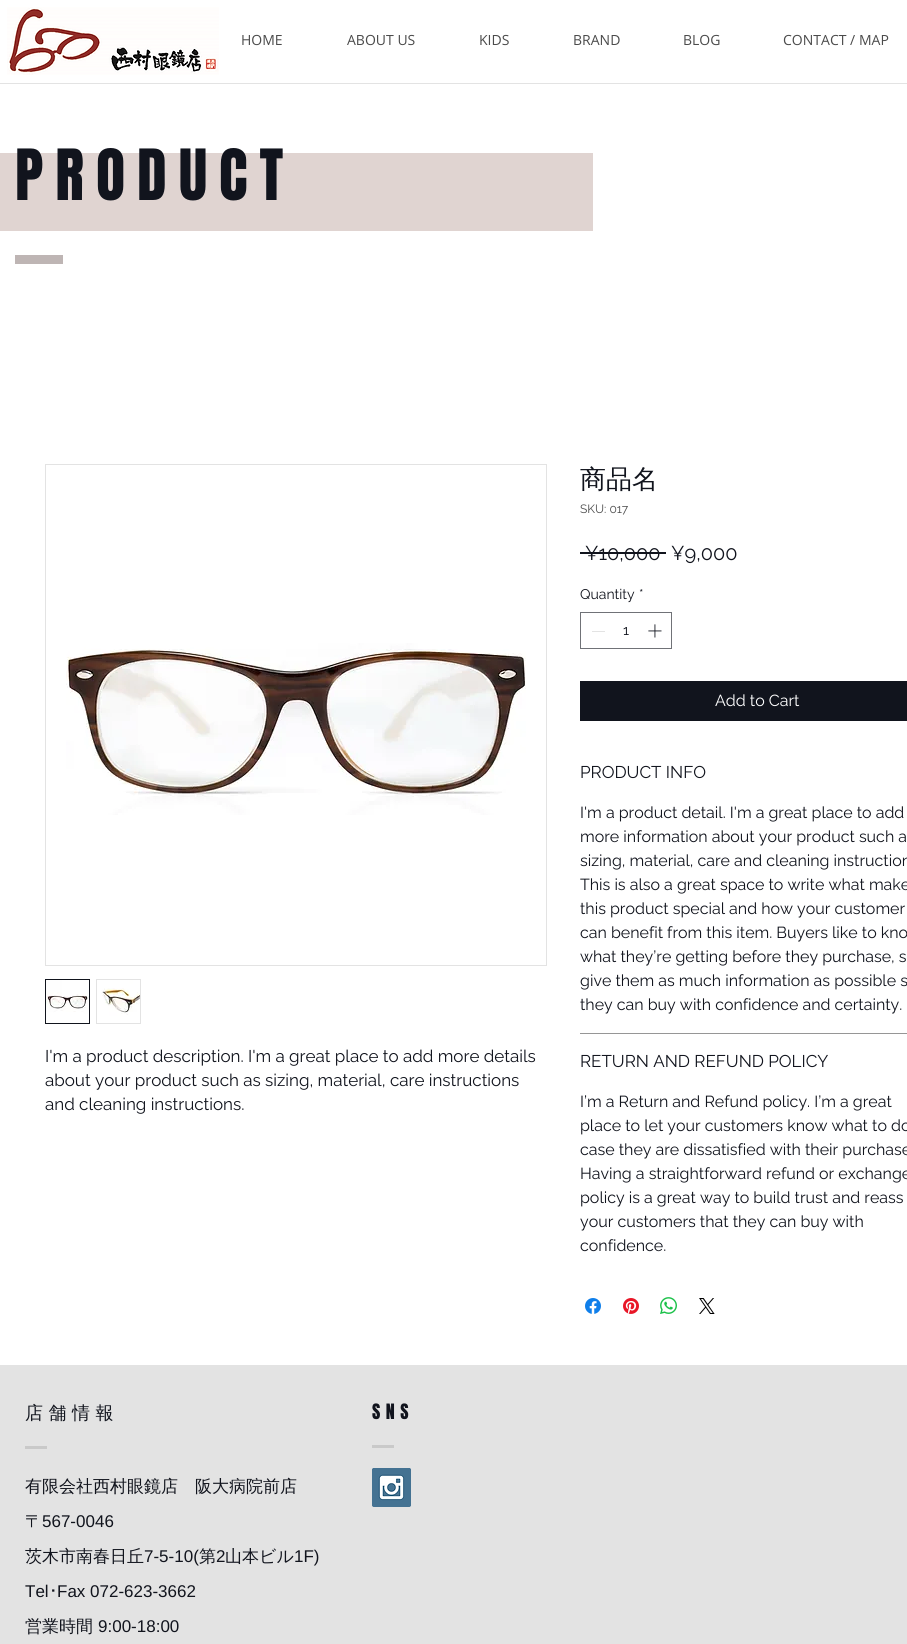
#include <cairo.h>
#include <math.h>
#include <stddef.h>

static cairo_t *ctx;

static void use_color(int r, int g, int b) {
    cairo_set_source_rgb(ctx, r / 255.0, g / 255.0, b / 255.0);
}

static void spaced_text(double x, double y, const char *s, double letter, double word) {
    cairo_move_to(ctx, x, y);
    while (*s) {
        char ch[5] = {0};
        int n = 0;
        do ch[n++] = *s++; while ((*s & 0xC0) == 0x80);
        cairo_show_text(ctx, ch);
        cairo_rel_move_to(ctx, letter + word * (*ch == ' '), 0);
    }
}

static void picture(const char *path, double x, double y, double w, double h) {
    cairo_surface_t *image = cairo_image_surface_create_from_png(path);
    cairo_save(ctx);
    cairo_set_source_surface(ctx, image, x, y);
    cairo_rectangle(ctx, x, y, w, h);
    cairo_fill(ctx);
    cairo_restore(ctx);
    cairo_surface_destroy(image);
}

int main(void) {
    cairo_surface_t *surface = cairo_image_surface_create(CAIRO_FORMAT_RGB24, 907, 1644);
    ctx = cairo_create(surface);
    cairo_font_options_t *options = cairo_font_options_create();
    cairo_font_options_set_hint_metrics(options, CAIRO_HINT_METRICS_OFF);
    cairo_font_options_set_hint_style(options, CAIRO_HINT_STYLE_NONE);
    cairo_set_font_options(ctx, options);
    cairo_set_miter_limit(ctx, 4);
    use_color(255, 255, 255);
    cairo_paint(ctx);
    picture("img1.png", 7, 7, 212, 68);
    cairo_select_font_face(ctx, "Open Sans", CAIRO_FONT_SLANT_NORMAL, CAIRO_FONT_WEIGHT_NORMAL);
    cairo_set_font_size(ctx, 14);
    use_color(75, 75, 75);
    cairo_move_to(ctx, 241, 45);
    cairo_show_text(ctx, "HOME");
    cairo_move_to(ctx, 347, 45);
    cairo_show_text(ctx, "ABOUT US");
    cairo_move_to(ctx, 479, 45);
    cairo_show_text(ctx, "KIDS");
    cairo_move_to(ctx, 573, 45);
    cairo_show_text(ctx, "BRAND");
    cairo_move_to(ctx, 683, 45);
    cairo_show_text(ctx, "BLOG");
    cairo_move_to(ctx, 783, 45);
    cairo_show_text(ctx, "CONTACT / MAP");
    use_color(227, 227, 227);
    cairo_rectangle(ctx, 0, 83, 907, 1);
    cairo_fill(ctx);
    use_color(224, 212, 209);
    cairo_rectangle(ctx, 0, 153, 593, 78);
    cairo_fill(ctx);
    cairo_select_font_face(ctx, "Anton", CAIRO_FONT_SLANT_NORMAL, CAIRO_FONT_WEIGHT_NORMAL);
    cairo_set_font_size(ctx, 60);
    use_color(17, 20, 29);
    spaced_text(15, 200, "PRODUCT", 12, 0);
    use_color(190, 181, 180);
    cairo_rectangle(ctx, 15, 255, 48, 9);
    cairo_fill(ctx);
    cairo_rectangle(ctx, 45.5, 464.5, 501, 501);
    use_color(227, 227, 227);
    cairo_set_line_width(ctx, 1);
    cairo_stroke(ctx);
    picture("img2.png", 66, 643, 460, 172);
    cairo_rectangle(ctx, 45.5, 979.5, 44, 44);
    use_color(17, 20, 29);
    cairo_stroke(ctx);
    picture("img3.png", 46, 980, 43, 43);
    use_color(227, 227, 227);
    cairo_rectangle(ctx, 96, 979, 45, 45);
    cairo_fill(ctx);
    picture("img4.png", 97, 980, 43, 43);
    cairo_select_font_face(ctx, "Raleway", CAIRO_FONT_SLANT_NORMAL, CAIRO_FONT_WEIGHT_NORMAL);
    cairo_set_font_size(ctx, 17);
    use_color(17, 20, 29);
    cairo_move_to(ctx, 45, 1062);
    cairo_show_text(ctx, "I'm a product description. I'm a great place to add more details");
    cairo_move_to(ctx, 45, 1086);
    cairo_show_text(ctx, "about your product such as sizing, material, care instructions");
    cairo_move_to(ctx, 45, 1110);
    cairo_show_text(ctx, "and cleaning instructions.");
    cairo_select_font_face(ctx, "WenQuanYi Zen Hei Medium", CAIRO_FONT_SLANT_NORMAL, CAIRO_FONT_WEIGHT_NORMAL);
    cairo_set_font_size(ctx, 26);
    cairo_move_to(ctx, 580, 488);
    cairo_show_text(ctx, "商品名");
    cairo_select_font_face(ctx, "Raleway", CAIRO_FONT_SLANT_NORMAL, CAIRO_FONT_WEIGHT_NORMAL);
    cairo_set_font_size(ctx, 12);
    use_color(75, 75, 75);
    cairo_move_to(ctx, 580, 513);
    cairo_show_text(ctx, "SKU: 017");
    cairo_set_font_size(ctx, 20);
    use_color(17, 20, 29);
    cairo_move_to(ctx, 585, 560);
    cairo_show_text(ctx, "¥10,000");
    cairo_rectangle(ctx, 580, 552, 86, 2);
    cairo_fill(ctx);
    cairo_move_to(ctx, 671, 560);
    cairo_show_text(ctx, "¥9,000");
    cairo_set_font_size(ctx, 14);
    cairo_move_to(ctx, 580, 599);
    cairo_show_text(ctx, "Quantity");
    cairo_move_to(ctx, 639, 599);
    cairo_show_text(ctx, "*");
    cairo_rectangle(ctx, 580.5, 612.5, 91, 36);
    use_color(112, 114, 119);
    cairo_stroke(ctx);
    use_color(227, 227, 227);
    cairo_rectangle(ctx, 592, 631, 13, 1);
    cairo_fill(ctx);
    use_color(17, 20, 29);
    cairo_move_to(ctx, 623, 635);
    cairo_show_text(ctx, "1");
    picture("img5.png", 648, 624, 14, 14);
    cairo_rectangle(ctx, 580, 681, 327, 40);
    cairo_fill(ctx);
    cairo_set_font_size(ctx, 16);
    use_color(255, 255, 255);
    cairo_move_to(ctx, 715, 706);
    cairo_show_text(ctx, "Add to Cart");
    use_color(150, 150, 150);
    cairo_rectangle(ctx, 580, 1033, 327, 1);
    cairo_fill(ctx);
    cairo_set_font_size(ctx, 17);
    use_color(17, 20, 29);
    cairo_move_to(ctx, 580, 778);
    cairo_show_text(ctx, "PRODUCT INFO");
    cairo_set_font_size(ctx, 16);
    cairo_move_to(ctx, 580, 818);
    cairo_show_text(ctx, "I'm a product detail. I'm a great place to add");
    cairo_move_to(ctx, 580, 842);
    cairo_show_text(ctx, "more information about your product such a");
    cairo_move_to(ctx, 580, 866);
    cairo_show_text(ctx, "sizing, material, care and cleaning instruction");
    cairo_move_to(ctx, 580, 890);
    cairo_show_text(ctx, "This is also a great space to write what make");
    cairo_move_to(ctx, 580, 914);
    cairo_show_text(ctx, "this product special and how your customer");
    cairo_move_to(ctx, 580, 938);
    cairo_show_text(ctx, "can benefit from this item. Buyers like to kno");
    cairo_move_to(ctx, 580, 962);
    cairo_show_text(ctx, "what they’re getting before they purchase, s");
    cairo_move_to(ctx, 580, 986);
    cairo_show_text(ctx, "give them as much information as possible s");
    cairo_move_to(ctx, 580, 1010);
    cairo_show_text(ctx, "they can buy with confidence and certainty.");
    cairo_set_font_size(ctx, 17);
    cairo_move_to(ctx, 580, 1067);
    cairo_show_text(ctx, "RETURN AND REFUND POLICY");
    cairo_set_font_size(ctx, 16);
    cairo_move_to(ctx, 580, 1107);
    cairo_show_text(ctx, "I’m a Return and Refund policy. I’m a great");
    cairo_move_to(ctx, 580, 1131);
    cairo_show_text(ctx, "place to let your customers know what to do");
    cairo_move_to(ctx, 580, 1155);
    cairo_show_text(ctx, "case they are dissatisfied with their purchase");
    cairo_move_to(ctx, 580, 1179);
    cairo_show_text(ctx, "Having a straightforward refund or exchange");
    cairo_move_to(ctx, 580, 1203);
    cairo_show_text(ctx, "policy is a great way to build trust and reass");
    cairo_move_to(ctx, 580, 1227);
    cairo_show_text(ctx, "your customers that they can buy with");
    cairo_move_to(ctx, 580, 1251);
    cairo_show_text(ctx, "confidence.");
    picture("img6.png", 585, 1298, 16, 16);
    picture("img7.png", 623, 1298, 16, 16);
    picture("img8.png", 660, 1297, 17, 17);
    picture("img9.png", 699, 1298, 16, 16);
    use_color(227, 227, 227);
    cairo_rectangle(ctx, 0, 1365, 907, 279);
    cairo_fill(ctx);
    cairo_select_font_face(ctx, "WenQuanYi Zen Hei Medium", CAIRO_FONT_SLANT_NORMAL, CAIRO_FONT_WEIGHT_NORMAL);
    cairo_set_font_size(ctx, 18);
    use_color(17, 20, 29);
    spaced_text(25, 1419, "店舗情報", 5.5, 0);
    cairo_select_font_face(ctx, "Anton", CAIRO_FONT_SLANT_NORMAL, CAIRO_FONT_WEIGHT_NORMAL);
    spaced_text(372, 1419, "SNS", 5.5, 0);
    use_color(201, 201, 201);
    cairo_rectangle(ctx, 25, 1446, 22, 3);
    cairo_fill(ctx);
    cairo_rectangle(ctx, 372, 1445, 22, 3);
    cairo_fill(ctx);
    cairo_select_font_face(ctx, "WenQuanYi Zen Hei Medium", CAIRO_FONT_SLANT_NORMAL, CAIRO_FONT_WEIGHT_NORMAL);
    cairo_set_font_size(ctx, 17);
    use_color(17, 20, 29);
    cairo_move_to(ctx, 25, 1492);
    cairo_show_text(ctx, "有限会社西村眼鏡店　阪大病院前店");
    cairo_move_to(ctx, 25, 1527);
    cairo_show_text(ctx, "〒");
    cairo_select_font_face(ctx, "Liberation Sans", CAIRO_FONT_SLANT_NORMAL, CAIRO_FONT_WEIGHT_NORMAL);
    cairo_move_to(ctx, 42, 1527);
    cairo_show_text(ctx, "567-0046");
    cairo_select_font_face(ctx, "WenQuanYi Zen Hei Medium", CAIRO_FONT_SLANT_NORMAL, CAIRO_FONT_WEIGHT_NORMAL);
    cairo_move_to(ctx, 25, 1562);
    cairo_show_text(ctx, "茨木市南春日丘");
    cairo_select_font_face(ctx, "Liberation Sans", CAIRO_FONT_SLANT_NORMAL, CAIRO_FONT_WEIGHT_NORMAL);
    cairo_move_to(ctx, 144, 1562);
    cairo_show_text(ctx, "7-5-10(");
    cairo_select_font_face(ctx, "WenQuanYi Zen Hei Medium", CAIRO_FONT_SLANT_NORMAL, CAIRO_FONT_WEIGHT_NORMAL);
    cairo_move_to(ctx, 199, 1562);
    cairo_show_text(ctx, "第");
    cairo_select_font_face(ctx, "Liberation Sans", CAIRO_FONT_SLANT_NORMAL, CAIRO_FONT_WEIGHT_NORMAL);
    cairo_move_to(ctx, 216, 1562);
    cairo_show_text(ctx, "2");
    cairo_select_font_face(ctx, "WenQuanYi Zen Hei Medium", CAIRO_FONT_SLANT_NORMAL, CAIRO_FONT_WEIGHT_NORMAL);
    cairo_move_to(ctx, 225, 1562);
    cairo_show_text(ctx, "山本ビル");
    cairo_select_font_face(ctx, "Liberation Sans", CAIRO_FONT_SLANT_NORMAL, CAIRO_FONT_WEIGHT_NORMAL);
    cairo_move_to(ctx, 294, 1562);
    cairo_show_text(ctx, "1F)");
    cairo_move_to(ctx, 25, 1597);
    cairo_show_text(ctx, "Tel");
    cairo_select_font_face(ctx, "IPAPGothic", CAIRO_FONT_SLANT_NORMAL, CAIRO_FONT_WEIGHT_NORMAL);
    cairo_move_to(ctx, 49, 1597);
    cairo_show_text(ctx, "･");
    cairo_select_font_face(ctx, "Liberation Sans", CAIRO_FONT_SLANT_NORMAL, CAIRO_FONT_WEIGHT_NORMAL);
    cairo_move_to(ctx, 57, 1597);
    cairo_show_text(ctx, "Fax 072-623-3662");
    cairo_select_font_face(ctx, "WenQuanYi Zen Hei Medium", CAIRO_FONT_SLANT_NORMAL, CAIRO_FONT_WEIGHT_NORMAL);
    cairo_move_to(ctx, 25, 1632);
    cairo_show_text(ctx, "営業時間");
    cairo_select_font_face(ctx, "Liberation Sans", CAIRO_FONT_SLANT_NORMAL, CAIRO_FONT_WEIGHT_NORMAL);
    cairo_move_to(ctx, 98, 1632);
    cairo_show_text(ctx, "9:00-18:00");
    picture("img10.png", 372, 1468, 39, 39);
    cairo_surface_write_to_png(surface, "result.png");
    cairo_font_options_destroy(options);
    cairo_destroy(ctx);
    cairo_surface_destroy(surface);
    return 0;
}
